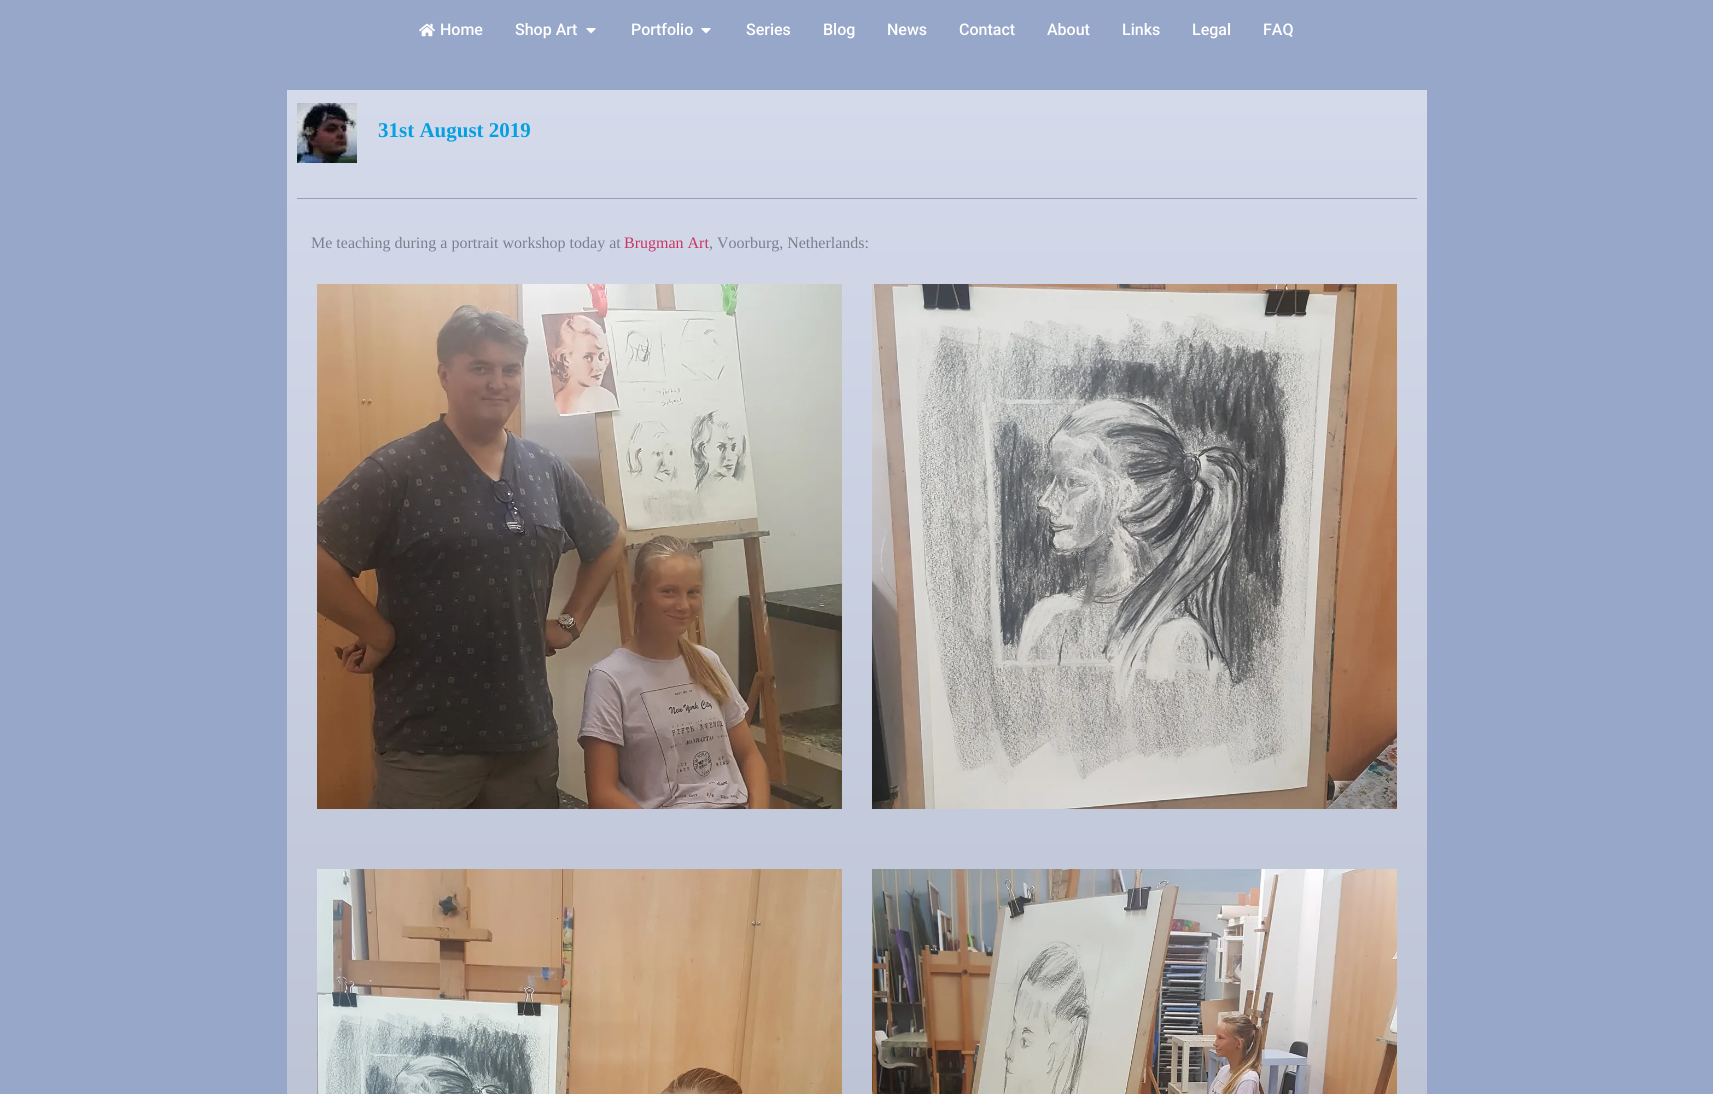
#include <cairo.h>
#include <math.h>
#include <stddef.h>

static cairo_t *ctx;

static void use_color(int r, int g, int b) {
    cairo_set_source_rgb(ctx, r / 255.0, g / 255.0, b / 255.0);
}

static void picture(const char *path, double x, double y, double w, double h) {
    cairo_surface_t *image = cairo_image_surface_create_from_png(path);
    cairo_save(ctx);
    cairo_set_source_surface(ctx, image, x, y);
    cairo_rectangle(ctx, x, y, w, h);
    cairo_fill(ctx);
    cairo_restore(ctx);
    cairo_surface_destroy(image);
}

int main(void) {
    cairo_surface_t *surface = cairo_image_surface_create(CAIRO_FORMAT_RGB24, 1713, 1094);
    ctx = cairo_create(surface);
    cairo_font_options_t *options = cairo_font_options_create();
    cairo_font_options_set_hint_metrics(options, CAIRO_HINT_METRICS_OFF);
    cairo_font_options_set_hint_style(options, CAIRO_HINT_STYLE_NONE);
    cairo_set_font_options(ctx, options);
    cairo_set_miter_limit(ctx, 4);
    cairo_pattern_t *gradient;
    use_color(151, 167, 201);
    cairo_paint(ctx);
    picture("img1.png", 419, 23, 16, 14);
    cairo_select_font_face(ctx, "Roboto Medium", CAIRO_FONT_SLANT_NORMAL, CAIRO_FONT_WEIGHT_NORMAL);
    cairo_set_font_size(ctx, 16);
    use_color(255, 255, 255);
    cairo_move_to(ctx, 440, 35);
    cairo_show_text(ctx, "Home");
    cairo_move_to(ctx, 515, 35);
    cairo_show_text(ctx, "Shop Art");
    picture("img2.png", 586, 28, 10, 6);
    cairo_move_to(ctx, 631, 35);
    cairo_show_text(ctx, "Portfolio");
    picture("img2.png", 701, 28, 10, 6);
    cairo_move_to(ctx, 746, 35);
    cairo_show_text(ctx, "Series");
    cairo_move_to(ctx, 823, 35);
    cairo_show_text(ctx, "Blog");
    cairo_move_to(ctx, 887, 35);
    cairo_show_text(ctx, "News");
    cairo_move_to(ctx, 959, 35);
    cairo_show_text(ctx, "Contact");
    cairo_move_to(ctx, 1047, 35);
    cairo_show_text(ctx, "About");
    cairo_move_to(ctx, 1122, 35);
    cairo_show_text(ctx, "Links");
    cairo_move_to(ctx, 1192, 35);
    cairo_show_text(ctx, "Legal");
    cairo_move_to(ctx, 1263, 35);
    cairo_show_text(ctx, "FAQ");
    gradient = cairo_pattern_create_linear(857, 90, 857, 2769);
    cairo_pattern_add_color_stop_rgba(gradient, 0, 0.831, 0.855, 0.918, 1);
    cairo_pattern_add_color_stop_rgba(gradient, 1, 0.592, 0.624, 0.698, 1);
    cairo_set_source(ctx, gradient);
    cairo_pattern_destroy(gradient);
    cairo_rectangle(ctx, 287, 90, 1140, 1004);
    cairo_fill(ctx);
    picture("img3.png", 297, 103, 60, 60);
    cairo_select_font_face(ctx, "Liberation Serif", CAIRO_FONT_SLANT_NORMAL, CAIRO_FONT_WEIGHT_BOLD);
    cairo_set_font_size(ctx, 21);
    use_color(6, 160, 226);
    cairo_move_to(ctx, 378, 137);
    cairo_show_text(ctx, "31st August 2019");
    use_color(151, 159, 178);
    cairo_rectangle(ctx, 297, 198, 1120, 1);
    cairo_fill(ctx);
    cairo_select_font_face(ctx, "Liberation Serif", CAIRO_FONT_SLANT_NORMAL, CAIRO_FONT_WEIGHT_NORMAL);
    cairo_set_font_size(ctx, 16);
    use_color(121, 128, 142);
    cairo_move_to(ctx, 311, 248);
    cairo_show_text(ctx, "Me teaching during a portrait workshop today at");
    use_color(204, 51, 102);
    cairo_move_to(ctx, 624, 248);
    cairo_show_text(ctx, "Brugman Art");
    use_color(121, 128, 142);
    cairo_move_to(ctx, 709, 248);
    cairo_show_text(ctx, ", Voorburg, Netherlands:");
    picture("img4.png", 317, 284, 525, 525);
    picture("img5.png", 872, 284, 525, 525);
    picture("img6.png", 317, 869, 525, 225);
    picture("img7.png", 872, 869, 525, 225);
    cairo_surface_write_to_png(surface, "result.png");
    cairo_font_options_destroy(options);
    cairo_destroy(ctx);
    cairo_surface_destroy(surface);
    return 0;
}
